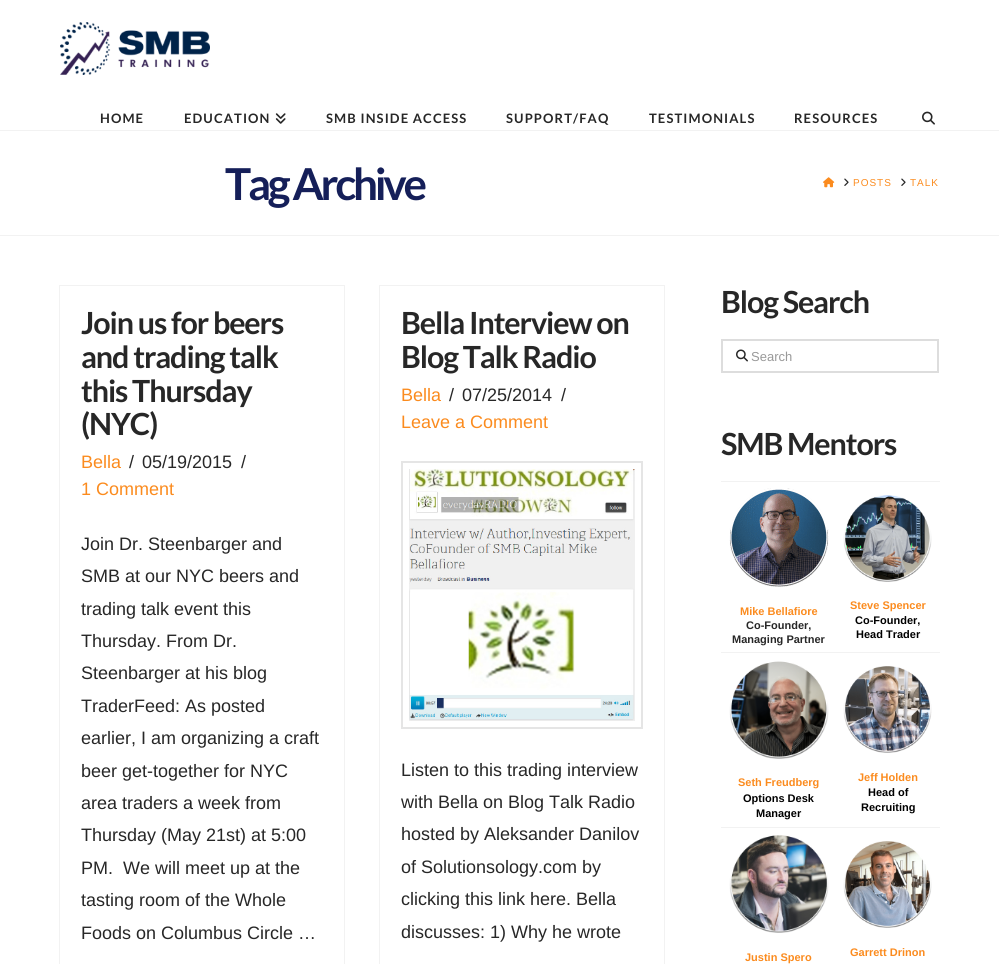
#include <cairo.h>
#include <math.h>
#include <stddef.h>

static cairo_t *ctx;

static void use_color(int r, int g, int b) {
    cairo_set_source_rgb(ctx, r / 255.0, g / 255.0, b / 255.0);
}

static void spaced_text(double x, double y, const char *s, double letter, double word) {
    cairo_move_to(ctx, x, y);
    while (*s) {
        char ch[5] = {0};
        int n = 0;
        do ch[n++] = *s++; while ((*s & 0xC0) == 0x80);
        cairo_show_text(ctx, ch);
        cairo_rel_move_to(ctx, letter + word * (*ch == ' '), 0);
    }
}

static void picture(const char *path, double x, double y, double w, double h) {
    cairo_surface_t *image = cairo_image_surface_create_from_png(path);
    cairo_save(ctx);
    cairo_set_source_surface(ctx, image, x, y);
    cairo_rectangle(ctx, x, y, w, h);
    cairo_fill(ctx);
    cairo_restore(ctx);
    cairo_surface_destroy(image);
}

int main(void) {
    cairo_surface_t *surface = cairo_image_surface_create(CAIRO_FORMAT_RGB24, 999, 964);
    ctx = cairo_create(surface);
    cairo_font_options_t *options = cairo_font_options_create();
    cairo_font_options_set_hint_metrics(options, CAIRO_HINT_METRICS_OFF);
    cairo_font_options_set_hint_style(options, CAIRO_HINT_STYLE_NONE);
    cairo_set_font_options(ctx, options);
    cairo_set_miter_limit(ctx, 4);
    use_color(255, 255, 255);
    cairo_paint(ctx);
    picture("img1.png", 60, 22, 150, 53);
    cairo_select_font_face(ctx, "Lato", CAIRO_FONT_SLANT_NORMAL, CAIRO_FONT_WEIGHT_BOLD);
    cairo_set_font_size(ctx, 13);
    use_color(39, 39, 39);
    spaced_text(100, 123, "HOME", 1.1, 0);
    spaced_text(184, 123, "EDUCATION", 1.1, 0);
    picture("img2.png", 275, 113, 11, 11);
    spaced_text(326, 123, "SMB INSIDE ACCESS", 1.1, 0);
    spaced_text(506, 123, "SUPPORT/FAQ", 1.1, 0);
    spaced_text(649, 123, "TESTIMONIALS", 1.1, 0);
    spaced_text(794, 123, "RESOURCES", 1.1, 0);
    picture("img3.png", 922, 111, 13, 14);
    use_color(242, 242, 242);
    cairo_rectangle(ctx, 0, 130, 999, 1);
    cairo_fill(ctx);
    cairo_rectangle(ctx, 0, 235, 999, 1);
    cairo_fill(ctx);
    cairo_set_font_size(ctx, 44);
    use_color(21, 31, 89);
    spaced_text(225, 200, "Tag Archive", -3.25, 0);
    picture("img4.png", 823, 177, 12, 11);
    picture("img5.png", 844, 178, 5, 8);
    cairo_select_font_face(ctx, "Liberation Sans", CAIRO_FONT_SLANT_NORMAL, CAIRO_FONT_WEIGHT_NORMAL);
    cairo_set_font_size(ctx, 10);
    use_color(251, 139, 30);
    spaced_text(853, 186, "POSTS", 1, 0);
    picture("img5.png", 901, 178, 5, 8);
    spaced_text(910, 186, "TALK", 1, 0);
    cairo_rectangle(ctx, 59.5, 285.5, 285, 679);
    use_color(242, 242, 242);
    cairo_set_line_width(ctx, 1);
    cairo_stroke(ctx);
    cairo_select_font_face(ctx, "Lato", CAIRO_FONT_SLANT_NORMAL, CAIRO_FONT_WEIGHT_BOLD);
    cairo_set_font_size(ctx, 30.5);
    use_color(39, 39, 39);
    spaced_text(81, 334, "Join us for beers", -1.1, 0);
    spaced_text(81, 368, "and trading talk", -1.1, 0);
    spaced_text(81, 402, "this Thursday", -1.1, 0);
    spaced_text(81, 435, "(NYC)", -1.1, 0);
    cairo_select_font_face(ctx, "Liberation Sans", CAIRO_FONT_SLANT_NORMAL, CAIRO_FONT_WEIGHT_NORMAL);
    cairo_set_font_size(ctx, 18);
    use_color(251, 139, 30);
    cairo_move_to(ctx, 81, 468);
    cairo_show_text(ctx, "Bella");
    use_color(39, 39, 39);
    cairo_move_to(ctx, 129, 468);
    cairo_show_text(ctx, "/");
    cairo_move_to(ctx, 142, 468);
    cairo_show_text(ctx, "05/19/2015");
    cairo_move_to(ctx, 241, 468);
    cairo_show_text(ctx, "/");
    use_color(251, 139, 30);
    cairo_move_to(ctx, 81, 495);
    cairo_show_text(ctx, "1 Comment");
    use_color(39, 39, 39);
    cairo_move_to(ctx, 81, 550);
    cairo_show_text(ctx, "Join Dr. Steenbarger and");
    cairo_move_to(ctx, 81, 582);
    cairo_show_text(ctx, "SMB at our NYC beers and");
    cairo_move_to(ctx, 81, 615);
    cairo_show_text(ctx, "trading talk event this");
    cairo_move_to(ctx, 81, 647);
    cairo_show_text(ctx, "Thursday. From Dr.");
    cairo_move_to(ctx, 81, 679);
    cairo_show_text(ctx, "Steenbarger at his blog");
    cairo_move_to(ctx, 81, 712);
    cairo_show_text(ctx, "TraderFeed: As posted");
    cairo_move_to(ctx, 81, 744);
    cairo_show_text(ctx, "earlier, I am organizing a craft");
    cairo_move_to(ctx, 81, 777);
    cairo_show_text(ctx, "beer get-together for NYC");
    cairo_move_to(ctx, 81, 809);
    cairo_show_text(ctx, "area traders a week from");
    cairo_move_to(ctx, 81, 841);
    cairo_show_text(ctx, "Thursday (May 21st) at 5:00");
    cairo_move_to(ctx, 81, 874);
    cairo_show_text(ctx, "PM.  We will meet up at the");
    cairo_move_to(ctx, 81, 906);
    cairo_show_text(ctx, "tasting room of the Whole");
    cairo_move_to(ctx, 81, 939);
    cairo_show_text(ctx, "Foods on Columbus Circle …");
    cairo_rectangle(ctx, 379.5, 285.5, 285, 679);
    use_color(242, 242, 242);
    cairo_stroke(ctx);
    cairo_select_font_face(ctx, "Lato", CAIRO_FONT_SLANT_NORMAL, CAIRO_FONT_WEIGHT_BOLD);
    cairo_set_font_size(ctx, 30.5);
    use_color(39, 39, 39);
    spaced_text(401, 334, "Bella Interview on", -1.1, 0);
    spaced_text(401, 368, "Blog Talk Radio", -1.1, 0);
    cairo_select_font_face(ctx, "Liberation Sans", CAIRO_FONT_SLANT_NORMAL, CAIRO_FONT_WEIGHT_NORMAL);
    cairo_set_font_size(ctx, 18);
    use_color(251, 139, 30);
    cairo_move_to(ctx, 401, 401);
    cairo_show_text(ctx, "Bella");
    use_color(39, 39, 39);
    cairo_move_to(ctx, 449, 401);
    cairo_show_text(ctx, "/");
    cairo_move_to(ctx, 462, 401);
    cairo_show_text(ctx, "07/25/2014");
    cairo_move_to(ctx, 561, 401);
    cairo_show_text(ctx, "/");
    use_color(251, 139, 30);
    cairo_move_to(ctx, 401, 428);
    cairo_show_text(ctx, "Leave a Comment");
    cairo_rectangle(ctx, 402, 462, 240, 266);
    use_color(229, 229, 229);
    cairo_set_line_width(ctx, 2);
    cairo_stroke(ctx);
    picture("img6.png", 409, 469, 226, 252);
    use_color(39, 39, 39);
    cairo_move_to(ctx, 401, 776);
    cairo_show_text(ctx, "Listen to this trading interview");
    cairo_move_to(ctx, 401, 808);
    cairo_show_text(ctx, "with Bella on Blog Talk Radio");
    cairo_move_to(ctx, 401, 840);
    cairo_show_text(ctx, "hosted by Aleksander Danilov");
    cairo_move_to(ctx, 401, 873);
    cairo_show_text(ctx, "of Solutionsology.com by");
    cairo_move_to(ctx, 401, 905);
    cairo_show_text(ctx, "clicking this link here. Bella");
    cairo_move_to(ctx, 401, 938);
    cairo_show_text(ctx, "discusses: 1) Why he wrote");
    cairo_select_font_face(ctx, "Lato", CAIRO_FONT_SLANT_NORMAL, CAIRO_FONT_WEIGHT_BOLD);
    cairo_set_font_size(ctx, 30.5);
    spaced_text(721, 313, "Blog Search", -1.1, 0);
    cairo_rectangle(ctx, 722, 340, 216, 32);
    use_color(221, 221, 221);
    cairo_stroke(ctx);
    picture("img7.png", 736, 349, 12, 13);
    cairo_select_font_face(ctx, "Liberation Sans", CAIRO_FONT_SLANT_NORMAL, CAIRO_FONT_WEIGHT_NORMAL);
    cairo_set_font_size(ctx, 13);
    use_color(153, 153, 153);
    cairo_move_to(ctx, 751, 361);
    cairo_show_text(ctx, "Search");
    cairo_select_font_face(ctx, "Lato", CAIRO_FONT_SLANT_NORMAL, CAIRO_FONT_WEIGHT_BOLD);
    cairo_set_font_size(ctx, 30.5);
    use_color(39, 39, 39);
    spaced_text(721, 455, "SMB Mentors", -1.1, 0);
    picture("img8.png", 729, 488, 100, 99);
    cairo_select_font_face(ctx, "Liberation Sans", CAIRO_FONT_SLANT_NORMAL, CAIRO_FONT_WEIGHT_BOLD);
    cairo_set_font_size(ctx, 11);
    use_color(251, 139, 30);
    cairo_move_to(ctx, 740, 615);
    cairo_show_text(ctx, "Mike Bellafiore");
    use_color(39, 39, 39);
    cairo_move_to(ctx, 746, 629);
    cairo_show_text(ctx, "Co-Founder,");
    cairo_move_to(ctx, 732, 643);
    cairo_show_text(ctx, "Managing Partner");
    use_color(242, 242, 242);
    cairo_rectangle(ctx, 721, 481, 219, 1);
    cairo_fill(ctx);
    picture("img9.png", 843, 495, 89, 87);
    use_color(251, 139, 30);
    cairo_move_to(ctx, 850, 609);
    cairo_show_text(ctx, "Steve Spencer");
    use_color(0, 0, 0);
    cairo_move_to(ctx, 855, 624);
    cairo_show_text(ctx, "Co-Founder,");
    cairo_move_to(ctx, 856, 638);
    cairo_show_text(ctx, "Head Trader");
    picture("img10.png", 729, 661, 100, 98);
    use_color(251, 139, 30);
    cairo_move_to(ctx, 738, 786);
    cairo_show_text(ctx, "Seth Freudberg");
    use_color(0, 0, 0);
    cairo_move_to(ctx, 743, 802);
    cairo_show_text(ctx, "Options Desk");
    cairo_move_to(ctx, 756, 817);
    cairo_show_text(ctx, "Manager");
    use_color(242, 242, 242);
    cairo_rectangle(ctx, 721, 652, 219, 1);
    cairo_fill(ctx);
    picture("img11.png", 843, 666, 89, 87);
    use_color(251, 139, 30);
    cairo_move_to(ctx, 858, 781);
    cairo_show_text(ctx, "Jeff Holden");
    use_color(0, 0, 0);
    cairo_move_to(ctx, 868, 796);
    cairo_show_text(ctx, "Head of");
    cairo_move_to(ctx, 861, 811);
    cairo_show_text(ctx, "Recruiting");
    picture("img12.png", 729, 835, 100, 98);
    use_color(251, 139, 30);
    cairo_move_to(ctx, 745, 961);
    cairo_show_text(ctx, "Justin Spero");
    use_color(242, 242, 242);
    cairo_rectangle(ctx, 721, 827, 219, 1);
    cairo_fill(ctx);
    picture("img13.png", 843, 841, 89, 87);
    use_color(251, 139, 30);
    cairo_move_to(ctx, 850, 956);
    cairo_show_text(ctx, "Garrett Drinon");
    cairo_surface_write_to_png(surface, "result.png");
    cairo_font_options_destroy(options);
    cairo_destroy(ctx);
    cairo_surface_destroy(surface);
    return 0;
}
